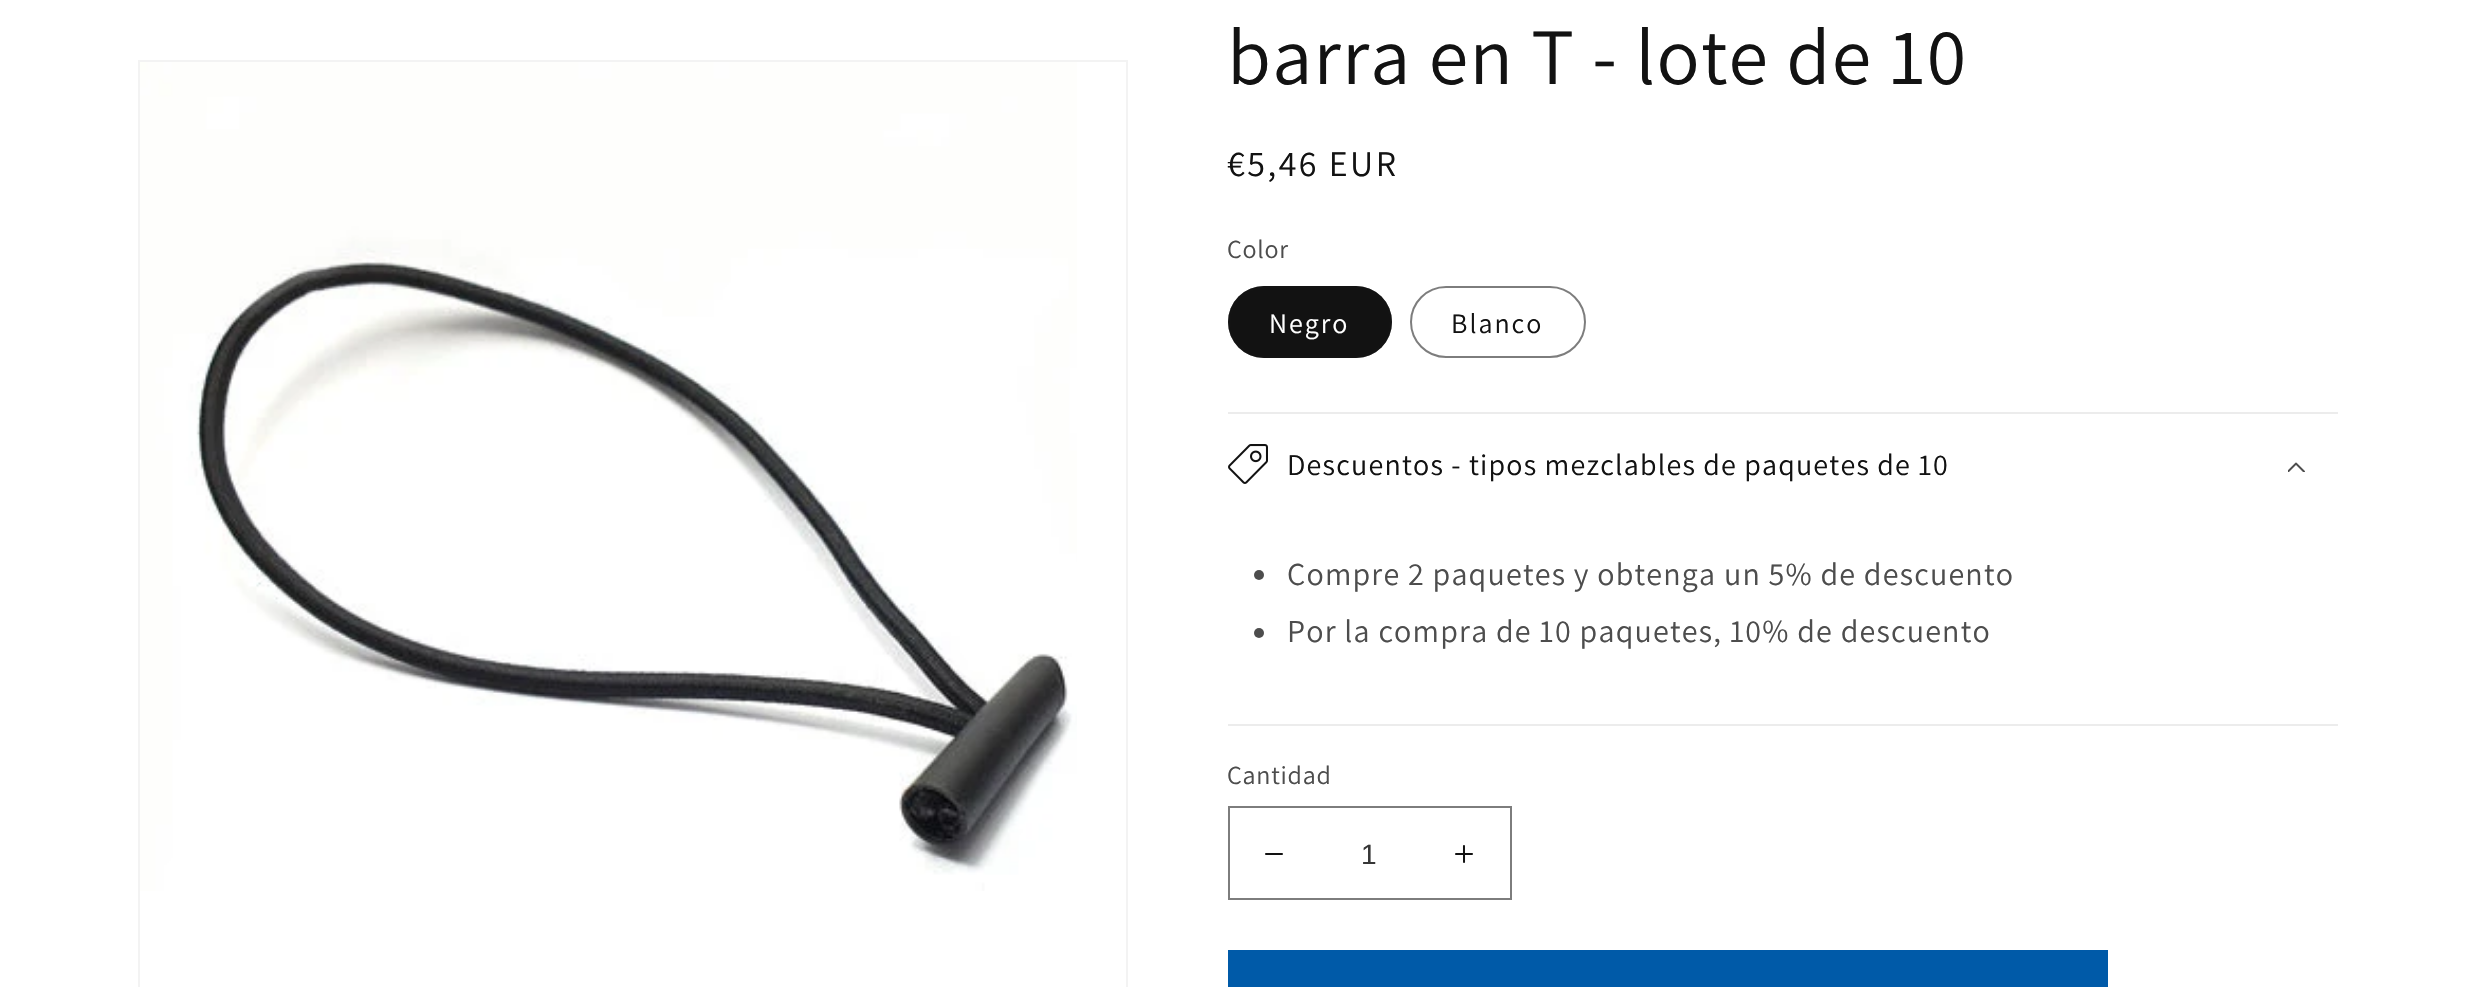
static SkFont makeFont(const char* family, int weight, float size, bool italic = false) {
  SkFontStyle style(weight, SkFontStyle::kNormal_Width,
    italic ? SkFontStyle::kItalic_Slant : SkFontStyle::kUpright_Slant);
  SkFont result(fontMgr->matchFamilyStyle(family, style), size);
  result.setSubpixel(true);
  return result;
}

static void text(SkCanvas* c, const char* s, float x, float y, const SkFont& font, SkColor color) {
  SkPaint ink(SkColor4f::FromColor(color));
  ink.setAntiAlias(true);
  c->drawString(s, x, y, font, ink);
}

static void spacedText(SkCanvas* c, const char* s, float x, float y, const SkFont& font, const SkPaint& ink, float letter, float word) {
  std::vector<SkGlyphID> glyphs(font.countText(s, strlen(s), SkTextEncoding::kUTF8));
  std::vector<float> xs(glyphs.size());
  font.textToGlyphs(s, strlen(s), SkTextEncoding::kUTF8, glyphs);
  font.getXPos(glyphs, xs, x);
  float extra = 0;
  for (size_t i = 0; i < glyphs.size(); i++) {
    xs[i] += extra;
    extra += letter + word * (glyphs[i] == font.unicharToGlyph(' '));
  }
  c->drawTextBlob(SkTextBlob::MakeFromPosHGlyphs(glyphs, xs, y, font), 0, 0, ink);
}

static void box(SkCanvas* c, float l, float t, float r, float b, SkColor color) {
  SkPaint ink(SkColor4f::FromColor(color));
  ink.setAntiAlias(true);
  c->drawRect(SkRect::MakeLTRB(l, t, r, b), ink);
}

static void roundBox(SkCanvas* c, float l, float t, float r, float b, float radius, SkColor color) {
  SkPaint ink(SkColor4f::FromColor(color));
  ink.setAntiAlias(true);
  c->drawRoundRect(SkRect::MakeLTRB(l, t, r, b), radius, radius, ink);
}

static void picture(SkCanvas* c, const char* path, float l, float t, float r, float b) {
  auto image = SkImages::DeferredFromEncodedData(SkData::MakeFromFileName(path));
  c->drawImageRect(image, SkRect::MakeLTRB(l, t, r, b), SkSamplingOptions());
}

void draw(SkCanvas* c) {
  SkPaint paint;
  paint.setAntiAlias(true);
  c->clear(0xffffffff);
  paint.setStyle(SkPaint::kStroke_Style);
  paint.setStrokeWidth(2);
  paint.setColor(0xfff3f3f3);
  c->drawRect(SkRect::MakeLTRB(139, 61, 1127, 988), paint);
  picture(c, "img_01.png", 140, 62, 1077, 891);
  SkFont face1 = makeFont("Assistant", 400, 80);
  paint.setStyle(SkPaint::kFill_Style);
  paint.setColor(0xff121212);
  spacedText(c, "barra en T - lote de 10", 1227, 84, face1, paint, 1.2f, 0);
  SkFont face2 = makeFont("Assistant", 400, 36);
  spacedText(c, "€5,46 EUR", 1227, 176, face2, paint, 2.5f, 0);
  SkFont face3 = makeFont("Assistant", 400, 26);
  paint.setColor(0xff4d4d4d);
  spacedText(c, "Color", 1227, 258, face3, paint, 0.75f, 0);
  roundBox(c, 1228, 286, 1392, 358, 36, 0xff121212);
  paint.setStyle(SkPaint::kStroke_Style);
  paint.setColor(0x8c121212);
  c->drawRoundRect(SkRect::MakeLTRB(1229, 287, 1391, 357), 35, 35, paint);
  SkFont face4 = makeFont("Assistant", 400, 28);
  paint.setStyle(SkPaint::kFill_Style);
  paint.setColor(0xffffffff);
  spacedText(c, "Negro", 1269, 333, face4, paint, 2, 0);
  paint.setStyle(SkPaint::kStroke_Style);
  paint.setColor(0xff7d7d7d);
  c->drawRoundRect(SkRect::MakeLTRB(1411, 287, 1585, 357), 35, 35, paint);
  paint.setStyle(SkPaint::kFill_Style);
  paint.setColor(0xff121212);
  spacedText(c, "Blanco", 1451, 333, face4, paint, 2, 0);
  box(c, 1228, 412, 2338, 414, 0xffececec);
  box(c, 1228, 724, 2338, 726, 0xffececec);
  picture(c, "img_02.png", 1228, 444, 1268, 484);
  SkFont face5 = makeFont("Assistant", 400, 30);
  spacedText(c, "Descuentos - tipos mezclables de paquetes de 10", 1287, 475, face5, paint, 1.2f, 0);
  picture(c, "img_03.png", 2288, 462, 2305, 472);
  paint.setColor(0xff4d4d4d);
  c->drawCircle(1259, 575, 5, paint);
  SkFont face6 = makeFont("Assistant", 400, 32);
  spacedText(c, "Compre 2 paquetes y obtenga un 5% de descuento", 1287, 585, face6, paint, 1.2f, 0);
  c->drawCircle(1259, 633, 5, paint);
  spacedText(c, "Por la compra de 10 paquetes, 10% de descuento", 1287, 642, face6, paint, 1.2f, 0);
  spacedText(c, "Cantidad", 1227, 784, face3, paint, 0.75f, 0);
  picture(c, "img_04.png", 1265, 853, 1283, 855);
  picture(c, "img_05.png", 1455, 845, 1473, 863);
  paint.setStyle(SkPaint::kStroke_Style);
  paint.setColor(0xff7d7d7d);
  c->drawRect(SkRect::MakeLTRB(1229, 807, 1511, 899), paint);
  SkFont face7 = makeFont("Liberation Sans", 400, 28);
  text(c, "1", 1361, 864, face7, 0xff363636);
  box(c, 1228, 950, 2108, 987, 0xff005aa8);
}
